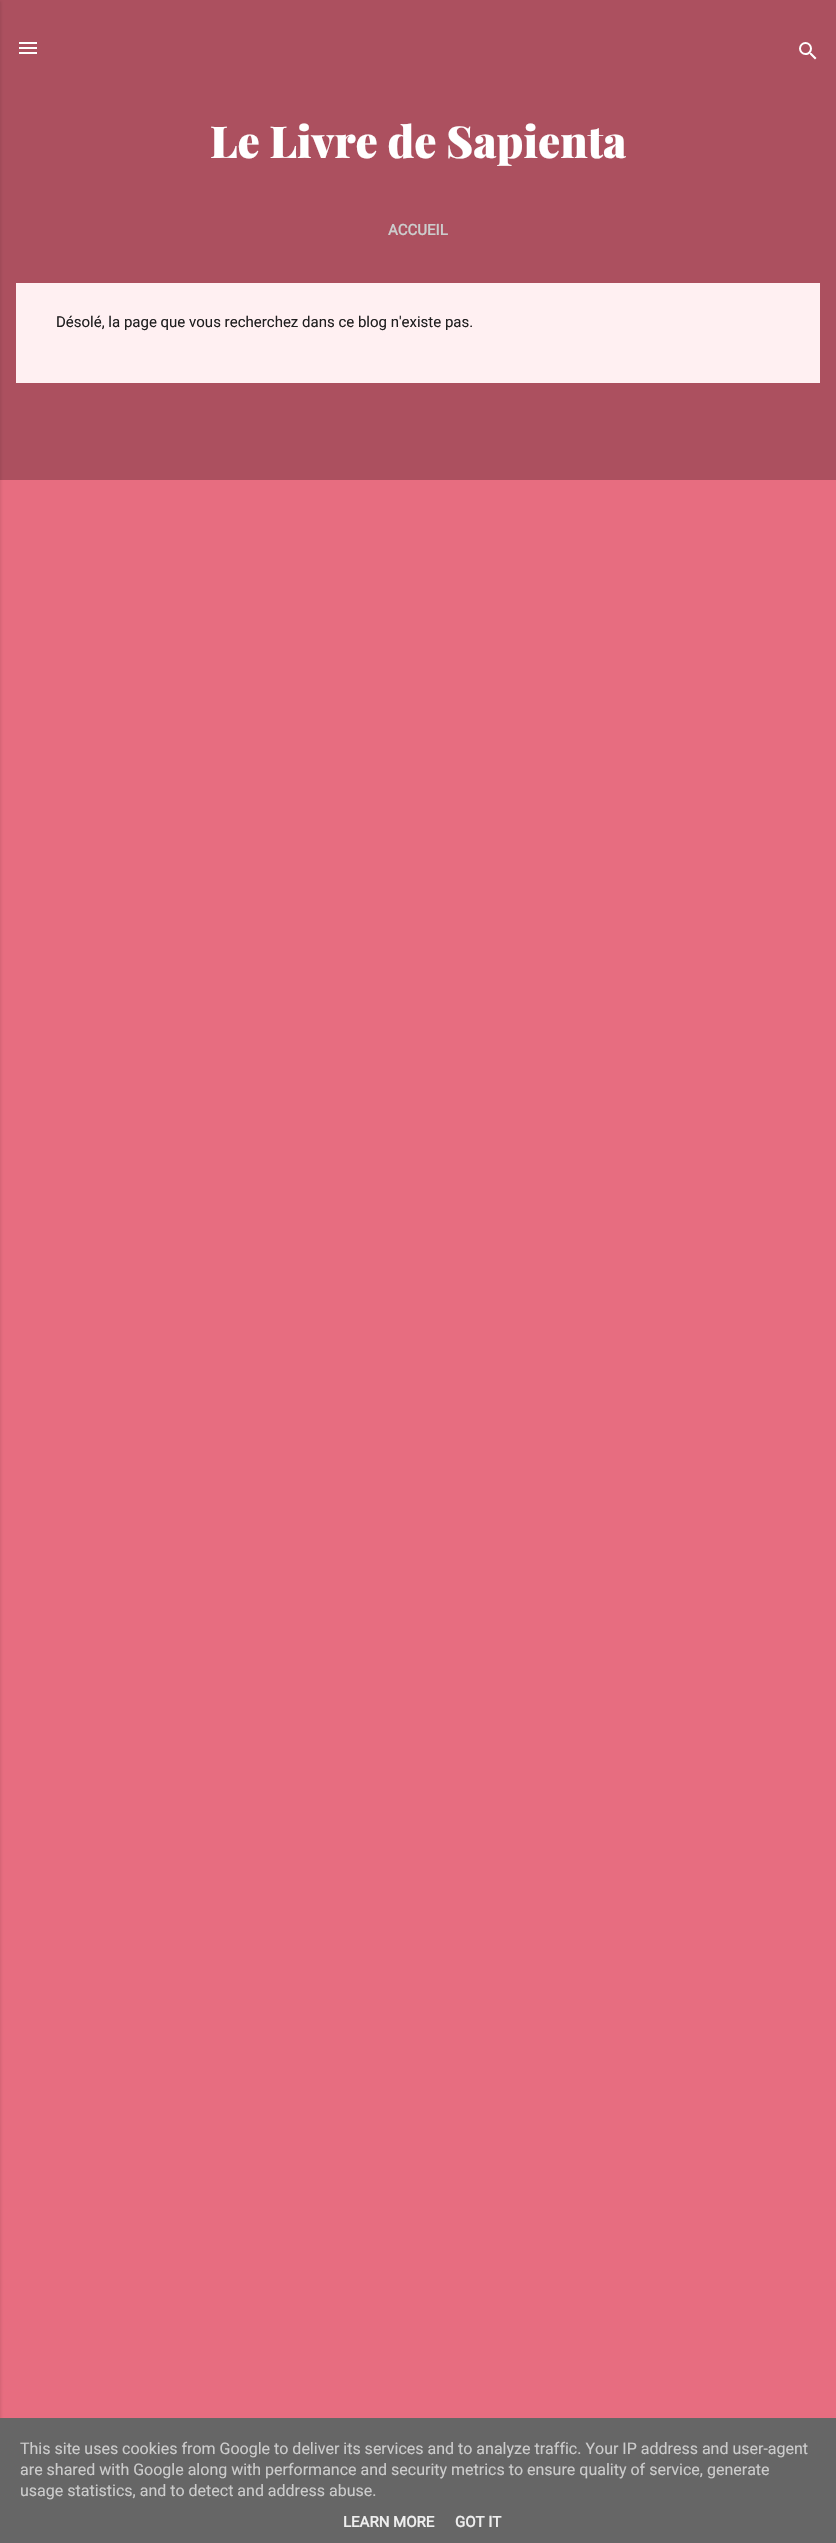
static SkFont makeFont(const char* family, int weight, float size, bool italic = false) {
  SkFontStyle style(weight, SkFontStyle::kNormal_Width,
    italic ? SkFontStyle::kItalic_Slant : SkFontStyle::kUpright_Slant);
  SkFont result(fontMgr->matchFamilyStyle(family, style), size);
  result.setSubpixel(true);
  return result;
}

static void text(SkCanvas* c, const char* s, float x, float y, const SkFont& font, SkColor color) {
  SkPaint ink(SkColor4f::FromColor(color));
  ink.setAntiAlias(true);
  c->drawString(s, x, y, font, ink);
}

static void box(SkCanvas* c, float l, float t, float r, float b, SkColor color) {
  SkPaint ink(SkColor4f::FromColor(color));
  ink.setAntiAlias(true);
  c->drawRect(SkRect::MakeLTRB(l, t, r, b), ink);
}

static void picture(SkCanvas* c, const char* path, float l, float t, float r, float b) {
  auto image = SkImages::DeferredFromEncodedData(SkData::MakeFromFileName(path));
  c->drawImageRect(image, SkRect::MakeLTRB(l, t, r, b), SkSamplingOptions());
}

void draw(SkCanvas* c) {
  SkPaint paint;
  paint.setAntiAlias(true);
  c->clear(0xffe76d80);
  box(c, 0, 0, 836, 480, 0xffac505f);
  paint.setColor(0x1a000000);
  paint.setMaskFilter(SkMaskFilter::MakeBlur(kNormal_SkBlurStyle, 1.5f));
  c->drawRect(SkRect::MakeLTRB(-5, 1, 1, 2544), paint);
  paint.setMaskFilter(nullptr);
  picture(c, "img_01.png", 19, 42, 37, 54);
  picture(c, "img_02.png", 799, 42, 817, 60);
  SkFont face1 = makeFont("Playfair Display", 900, 44);
  text(c, "Le Livre de Sapienta", 210, 158, face1, 0xffffffff);
  SkFont face2 = makeFont("Roboto", 700, 15);
  text(c, "ACCUEIL", 388, 235, face2, 0xffcccccc);
  box(c, 16, 283, 820, 383, 0xfffff0f2);
  SkFont face3 = makeFont("Roboto", 400, 15);
  text(c, "Désolé, la page que vous recherchez dans ce blog n'existe pas.", 56, 327, face3, 0xff201f20);
  box(c, 0, 2418, 836, 2543, 0xff666666);
  SkFont face4 = makeFont("Roboto", 400, 16);
  text(c, "This site uses cookies from Google to deliver its services and to analyze traffic. Your IP address and user-agent", 20, 2454, face4, 0xffcccccc);
  text(c, "are shared with Google along with performance and security metrics to ensure quality of service, generate", 20, 2475, face4, 0xffcccccc);
  text(c, "usage statistics, and to detect and address abuse.", 20, 2496, face4, 0xffcccccc);
  text(c, "LEARN MORE", 343, 2527, face2, 0xffeeeeee);
  text(c, "GOT IT", 455, 2527, face2, 0xffeeeeee);
}
